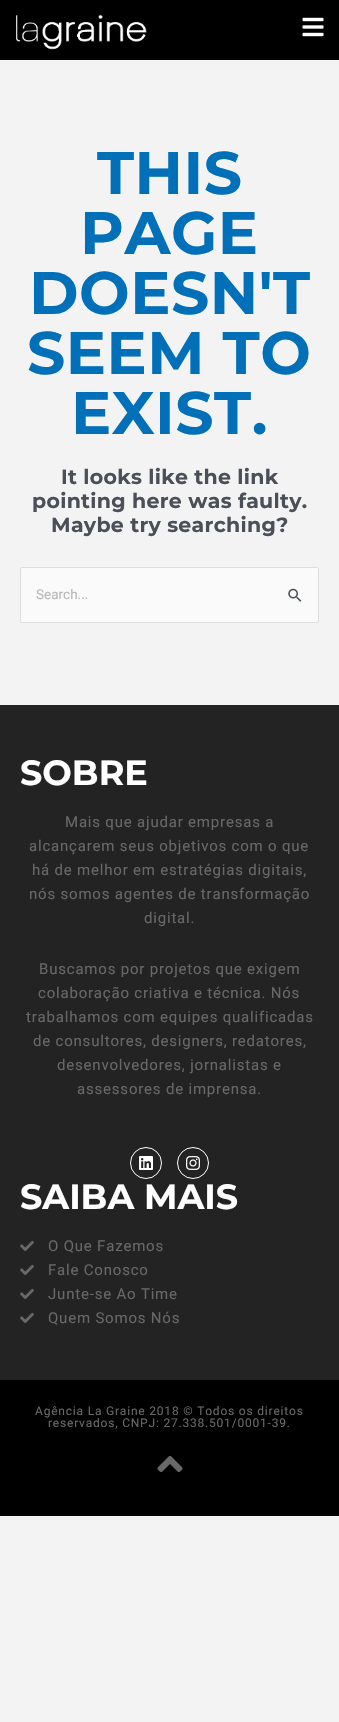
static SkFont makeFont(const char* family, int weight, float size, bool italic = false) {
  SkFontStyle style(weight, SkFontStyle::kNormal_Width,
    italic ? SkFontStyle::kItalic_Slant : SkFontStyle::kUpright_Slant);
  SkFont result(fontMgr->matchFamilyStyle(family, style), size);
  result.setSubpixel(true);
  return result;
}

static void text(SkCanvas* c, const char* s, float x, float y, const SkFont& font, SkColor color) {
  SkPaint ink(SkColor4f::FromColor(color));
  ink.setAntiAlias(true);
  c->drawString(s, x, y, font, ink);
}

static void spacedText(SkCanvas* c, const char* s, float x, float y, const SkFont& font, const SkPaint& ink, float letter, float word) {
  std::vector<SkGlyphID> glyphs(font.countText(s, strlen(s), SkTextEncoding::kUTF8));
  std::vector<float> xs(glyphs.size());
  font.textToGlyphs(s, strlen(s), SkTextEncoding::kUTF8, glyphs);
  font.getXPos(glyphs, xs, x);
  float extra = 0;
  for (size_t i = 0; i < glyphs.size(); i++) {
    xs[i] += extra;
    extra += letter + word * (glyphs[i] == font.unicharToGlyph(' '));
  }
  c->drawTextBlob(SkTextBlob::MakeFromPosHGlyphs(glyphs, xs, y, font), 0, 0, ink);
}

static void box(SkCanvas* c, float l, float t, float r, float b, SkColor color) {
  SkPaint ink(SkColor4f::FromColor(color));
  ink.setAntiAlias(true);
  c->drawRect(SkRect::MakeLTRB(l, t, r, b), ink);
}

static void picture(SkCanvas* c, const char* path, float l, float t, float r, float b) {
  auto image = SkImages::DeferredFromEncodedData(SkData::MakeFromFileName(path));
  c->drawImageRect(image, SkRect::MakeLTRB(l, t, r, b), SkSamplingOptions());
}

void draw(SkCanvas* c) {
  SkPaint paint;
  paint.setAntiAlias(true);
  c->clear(0xfff3f3f3);
  box(c, 0, 0, 339, 60, 0xff000000);
  picture(c, "img_01.png", 16, 14, 147, 50);
  picture(c, "img_02.png", 302, 17, 324, 37);
  SkFont face1 = makeFont("Montserrat", 700, 60);
  paint.setColor(0xff0170b9);
  spacedText(c, "THIS", 97, 194, face1, paint, 0.5f, 0);
  spacedText(c, "PAGE", 80, 254, face1, paint, 0.5f, 0);
  spacedText(c, "DOESN'T", 29, 314, face1, paint, 0.5f, 0);
  spacedText(c, "SEEM TO", 27, 374, face1, paint, 0.5f, 0);
  spacedText(c, "EXIST.", 71, 434, face1, paint, 0.5f, 0);
  SkFont face2 = makeFont("Montserrat", 700, 20.5f);
  paint.setColor(0xff4b4f58);
  spacedText(c, "It looks like the link", 61, 484, face2, paint, 0.3f, 0);
  spacedText(c, "pointing here was faulty.", 32, 508, face2, paint, 0.3f, 0);
  spacedText(c, "Maybe try searching?", 51, 532, face2, paint, 0.3f, 0);
  paint.setColor(0xfffafafa);
  c->drawRoundRect(SkRect::MakeLTRB(20.5f, 567.5f, 318.5f, 622.5f), 1.5f, 1.5f, paint);
  paint.setStyle(SkPaint::kStroke_Style);
  paint.setStrokeWidth(1);
  paint.setColor(0xffdddddd);
  c->drawRoundRect(SkRect::MakeLTRB(20.5f, 567.5f, 318.5f, 622.5f), 1.5f, 1.5f, paint);
  SkFont face3 = makeFont("Roboto", 400, 13.5f);
  text(c, "Search...", 36, 599, face3, 0xffb8b8b8);
  picture(c, "img_03.png", 288, 588, 302, 602);
  box(c, 0, 705, 339, 1380, 0xff232323);
  SkFont face4 = makeFont("Montserrat", 700, 35);
  text(c, "SOBRE", 20, 785, face4, 0xffffffff);
  SkFont face5 = makeFont("Roboto", 400, 15);
  paint.setStyle(SkPaint::kFill_Style);
  paint.setColor(0xff686868);
  spacedText(c, "Mais que ajudar empresas a", 65, 827, face5, paint, 0.8f, 0);
  spacedText(c, "alcançarem seus objetivos com o que", 29, 851, face5, paint, 0.8f, 0);
  spacedText(c, "há de melhor em estratégias digitais,", 32, 875, face5, paint, 0.8f, 0);
  spacedText(c, "nós somos agentes de transformação", 29, 899, face5, paint, 0.8f, 0);
  spacedText(c, "digital.", 144, 923, face5, paint, 0.8f, 0);
  spacedText(c, "Buscamos por projetos que exigem", 39, 974, face5, paint, 0.8f, 0);
  spacedText(c, "colaboração criativa e técnica. Nós", 38, 998, face5, paint, 0.8f, 0);
  spacedText(c, "trabalhamos com equipes qualificadas", 26, 1022, face5, paint, 0.8f, 0);
  spacedText(c, "de consultores, designers, redatores,", 33, 1046, face5, paint, 0.8f, 0);
  spacedText(c, "desenvolvedores, jornalistas e", 57, 1070, face5, paint, 0.8f, 0);
  spacedText(c, "assessores de imprensa.", 77, 1094, face5, paint, 0.8f, 0);
  paint.setStyle(SkPaint::kStroke_Style);
  paint.setColor(0xffffffff);
  c->drawCircle(146, 1163, 15.5f, paint);
  picture(c, "img_04.png", 139, 1156, 153, 1170);
  c->drawCircle(193, 1163, 15.5f, paint);
  picture(c, "img_05.png", 186, 1156, 200, 1170);
  text(c, "SAIBA MAIS", 20, 1209, face4, 0xffffffff);
  picture(c, "img_06.png", 20, 1240, 34, 1252);
  paint.setStyle(SkPaint::kFill_Style);
  paint.setColor(0xff686868);
  spacedText(c, "O Que Fazemos", 48, 1251, face5, paint, 0.8f, 0);
  picture(c, "img_06.png", 20, 1264, 34, 1276);
  spacedText(c, "Fale Conosco", 48, 1275, face5, paint, 0.8f, 0);
  picture(c, "img_06.png", 20, 1288, 34, 1300);
  spacedText(c, "Junte-se Ao Time", 48, 1299, face5, paint, 0.8f, 0);
  picture(c, "img_06.png", 20, 1312, 34, 1324);
  spacedText(c, "Quem Somos Nós", 48, 1323, face5, paint, 0.8f, 0);
  box(c, 0, 1380, 339, 1516, 0xff000000);
  SkFont face6 = makeFont("Roboto", 400, 12);
  spacedText(c, "Agência La Graine 2018 © Todos os direitos", 35, 1415, face6, paint, 0.8f, 0);
  spacedText(c, "reservados, CNPJ: 27.338.501/0001-39.", 48, 1427, face6, paint, 0.8f, 0);
  picture(c, "img_07.png", 157, 1456, 183, 1472);
}
